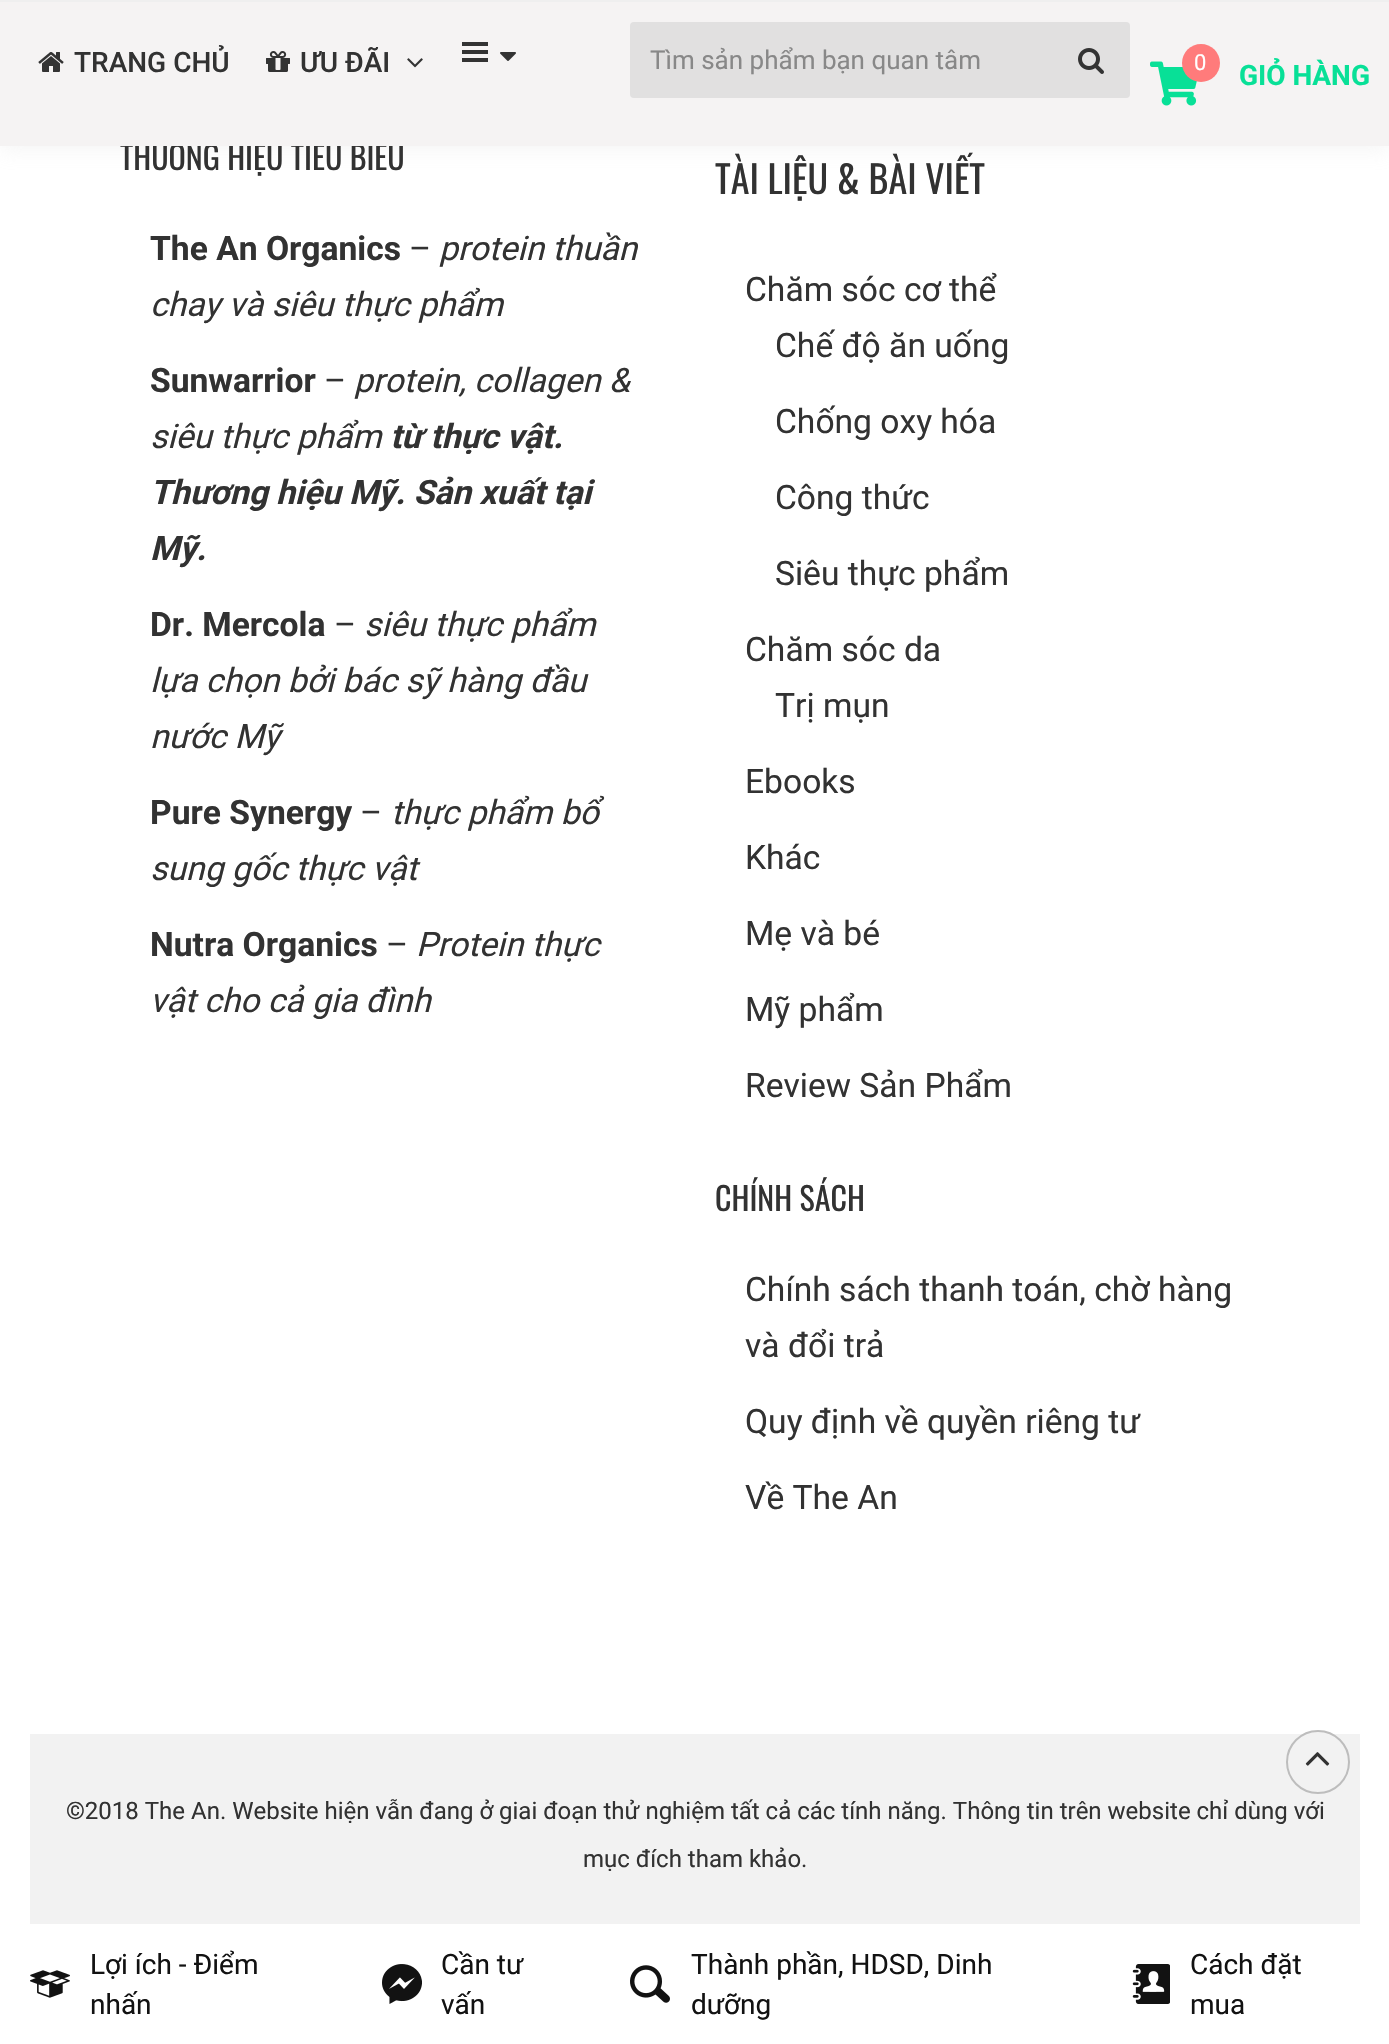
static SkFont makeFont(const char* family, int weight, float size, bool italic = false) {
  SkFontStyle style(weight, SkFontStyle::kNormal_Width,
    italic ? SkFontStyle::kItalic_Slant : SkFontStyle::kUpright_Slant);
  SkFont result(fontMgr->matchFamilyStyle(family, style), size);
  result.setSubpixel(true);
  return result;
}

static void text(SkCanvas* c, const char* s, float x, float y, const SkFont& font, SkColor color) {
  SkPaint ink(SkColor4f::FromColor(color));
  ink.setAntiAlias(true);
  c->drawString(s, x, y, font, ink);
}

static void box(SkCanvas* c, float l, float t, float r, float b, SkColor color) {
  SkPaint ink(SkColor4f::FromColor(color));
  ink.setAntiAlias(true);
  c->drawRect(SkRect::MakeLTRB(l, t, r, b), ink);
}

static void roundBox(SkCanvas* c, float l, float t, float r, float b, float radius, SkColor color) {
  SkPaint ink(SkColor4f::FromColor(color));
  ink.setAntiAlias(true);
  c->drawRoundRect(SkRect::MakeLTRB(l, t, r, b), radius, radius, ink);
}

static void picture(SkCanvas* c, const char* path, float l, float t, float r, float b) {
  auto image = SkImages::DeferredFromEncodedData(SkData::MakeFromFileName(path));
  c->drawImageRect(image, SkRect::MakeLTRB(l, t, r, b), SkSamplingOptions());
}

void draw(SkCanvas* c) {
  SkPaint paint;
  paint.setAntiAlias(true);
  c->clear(0xffffffff);
  paint.setColor(0x33cccccc);
  paint.setMaskFilter(SkMaskFilter::MakeBlur(kNormal_SkBlurStyle, 10));
  c->drawRect(SkRect::MakeLTRB(0, 4, 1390, 150), paint);
  paint.setMaskFilter(nullptr);
  SkFont face1 = makeFont("Oswald", 400, 32);
  text(c, "THƯƠNG HIỆU TIÊU BIỂU", 120, 170, face1, 0xff323232);
  box(c, 0, 2, 1389, 146, 0xfff5f3f3);
  box(c, 0, 0, 1389, 2, 0xffefefef);
  picture(c, "img_01.png", 38, 52, 64, 72);
  SkFont face2 = makeFont("Roboto", 500, 28);
  text(c, "TRANG CHỦ", 74, 72, face2, 0xff323232);
  picture(c, "img_02.png", 266, 51, 290, 72);
  text(c, "ƯU ĐÃI", 300, 72, face2, 0xff323232);
  picture(c, "img_03.png", 407, 58, 423, 68);
  box(c, 462, 42, 488, 46, 0xff333333);
  box(c, 462, 50, 488, 54, 0xff333333);
  box(c, 462, 58, 488, 62, 0xff333333);
  picture(c, "img_04.png", 500, 52, 516, 61);
  roundBox(c, 630, 22, 1130, 98, 4, 0xffe1e0e0);
  SkFont face3 = makeFont("Roboto", 400, 26);
  text(c, "Tìm sản phẩm bạn quan tâm", 650, 69, face3, 0xff888888);
  picture(c, "img_05.png", 1078, 48, 1104, 74);
  picture(c, "img_06.png", 1150, 61, 1197, 106);
  paint.setColor(0xffff7b7b);
  c->drawCircle(1201, 63, 19, paint);
  SkFont face4 = makeFont("Roboto", 400, 22);
  text(c, "0", 1194, 70, face4, 0xffffffff);
  SkFont face5 = makeFont("Roboto", 700, 28);
  text(c, "GIỎ HÀNG", 1239, 85, face5, 0xff08e097);
  SkFont face6 = makeFont("Roboto", 700, 33.6f);
  text(c, "The An Organics", 150, 260, face6, 0xff323232);
  SkFont face7 = makeFont("Roboto", 400, 33.6f);
  text(c, "–", 409, 260, face7, 0xff323232);
  SkFont face8 = makeFont("Roboto", 400, 33.6f, true);
  text(c, "protein thuần", 439, 260, face8, 0xff323232);
  text(c, "chay và siêu thực phẩm", 150, 316, face8, 0xff323232);
  text(c, "Sunwarrior", 150, 392, face6, 0xff323232);
  text(c, "–", 324, 392, face7, 0xff323232);
  text(c, "protein, collagen &", 354, 392, face8, 0xff323232);
  text(c, "siêu thực phẩm", 150, 448, face8, 0xff323232);
  SkFont face9 = makeFont("Roboto", 700, 33.6f, true);
  text(c, "từ thực vật.", 390, 448, face9, 0xff323232);
  text(c, "Thương hiệu Mỹ. Sản xuất tại", 150, 504, face9, 0xff323232);
  text(c, "Mỹ.", 150, 560, face9, 0xff323232);
  text(c, "Dr. Mercola", 150, 636, face6, 0xff323232);
  text(c, "–", 334, 636, face7, 0xff323232);
  text(c, "siêu thực phẩm", 364, 636, face8, 0xff323232);
  text(c, "lựa chọn bởi bác sỹ hàng đầu", 150, 692, face8, 0xff323232);
  text(c, "nước Mỹ", 150, 748, face8, 0xff323232);
  text(c, "Pure Synergy", 150, 824, face6, 0xff323232);
  text(c, "–", 360, 824, face7, 0xff323232);
  text(c, "thực phẩm bổ", 391, 824, face8, 0xff323232);
  text(c, "sung gốc thực vật", 150, 880, face8, 0xff323232);
  text(c, "Nutra Organics", 150, 956, face6, 0xff323232);
  text(c, "–", 386, 956, face7, 0xff323232);
  text(c, "Protein thực", 416, 956, face8, 0xff323232);
  text(c, "vật cho cả gia đình", 150, 1012, face8, 0xff323232);
  SkFont face10 = makeFont("Oswald", 400, 38);
  text(c, "TÀI LIỆU & BÀI VIẾT", 715, 194, face10, 0xff323232);
  text(c, "Chăm sóc cơ thể", 745, 301, face7, 0xff323232);
  text(c, "Chế độ ăn uống", 775, 357, face7, 0xff323232);
  text(c, "Chống oxy hóa", 775, 433, face7, 0xff323232);
  text(c, "Công thức", 775, 509, face7, 0xff323232);
  text(c, "Siêu thực phẩm", 775, 585, face7, 0xff323232);
  text(c, "Chăm sóc da", 745, 661, face7, 0xff323232);
  text(c, "Trị mụn", 775, 717, face7, 0xff323232);
  text(c, "Ebooks", 745, 793, face7, 0xff323232);
  text(c, "Khác", 745, 869, face7, 0xff323232);
  text(c, "Mẹ và bé", 745, 945, face7, 0xff323232);
  text(c, "Mỹ phẩm", 745, 1021, face7, 0xff323232);
  text(c, "Review Sản Phẩm", 745, 1097, face7, 0xff323232);
  text(c, "CHÍNH SÁCH", 715, 1211, face1, 0xff323232);
  text(c, "Chính sách thanh toán, chờ hàng", 745, 1301, face7, 0xff323232);
  text(c, "và đổi trả", 745, 1357, face7, 0xff323232);
  text(c, "Quy định về quyền riêng tư", 745, 1433, face7, 0xff323232);
  text(c, "Về The An", 745, 1509, face7, 0xff323232);
  box(c, 30, 1734, 1360, 1924, 0xfff2f2f2);
  paint.setColor(0xfff2f2f2);
  c->drawCircle(1318, 1762, 31, paint);
  paint.setStyle(SkPaint::kStroke_Style);
  paint.setStrokeWidth(2);
  paint.setColor(0xffbdbdbd);
  c->drawCircle(1318, 1762, 31, paint);
  picture(c, "img_07.png", 1305, 1752, 1330, 1766);
  SkFont face11 = makeFont("Roboto", 400, 24);
  text(c, "©2018 The An. Website hiện vẫn đang ở giai đoạn thử nghiệm tất cả các tính năng. Thông tin trên website chỉ dùng với", 66, 1819, face11, 0xff323232);
  text(c, "mục đích tham khảo.", 583, 1867, face11, 0xff323232);
  picture(c, "img_08.png", 30, 1970, 70, 1998);
  SkFont face12 = makeFont("Roboto", 400, 28);
  text(c, "Lợi ích - Điểm", 90, 1974, face12, 0xff121212);
  text(c, "nhấn", 90, 2014, face12, 0xff121212);
  picture(c, "img_09.png", 382, 1964, 422, 2004);
  text(c, "Cần tư", 441, 1974, face12, 0xff121212);
  text(c, "vấn", 441, 2014, face12, 0xff121212);
  picture(c, "img_10.png", 630, 1965, 670, 2003);
  text(c, "Thành phần, HDSD, Dinh", 691, 1974, face12, 0xff121212);
  text(c, "dưỡng", 691, 2014, face12, 0xff121212);
  picture(c, "img_11.png", 1132, 1964, 1170, 2004);
  text(c, "Cách đặt", 1190, 1974, face12, 0xff121212);
  text(c, "mua", 1190, 2014, face12, 0xff121212);
}
